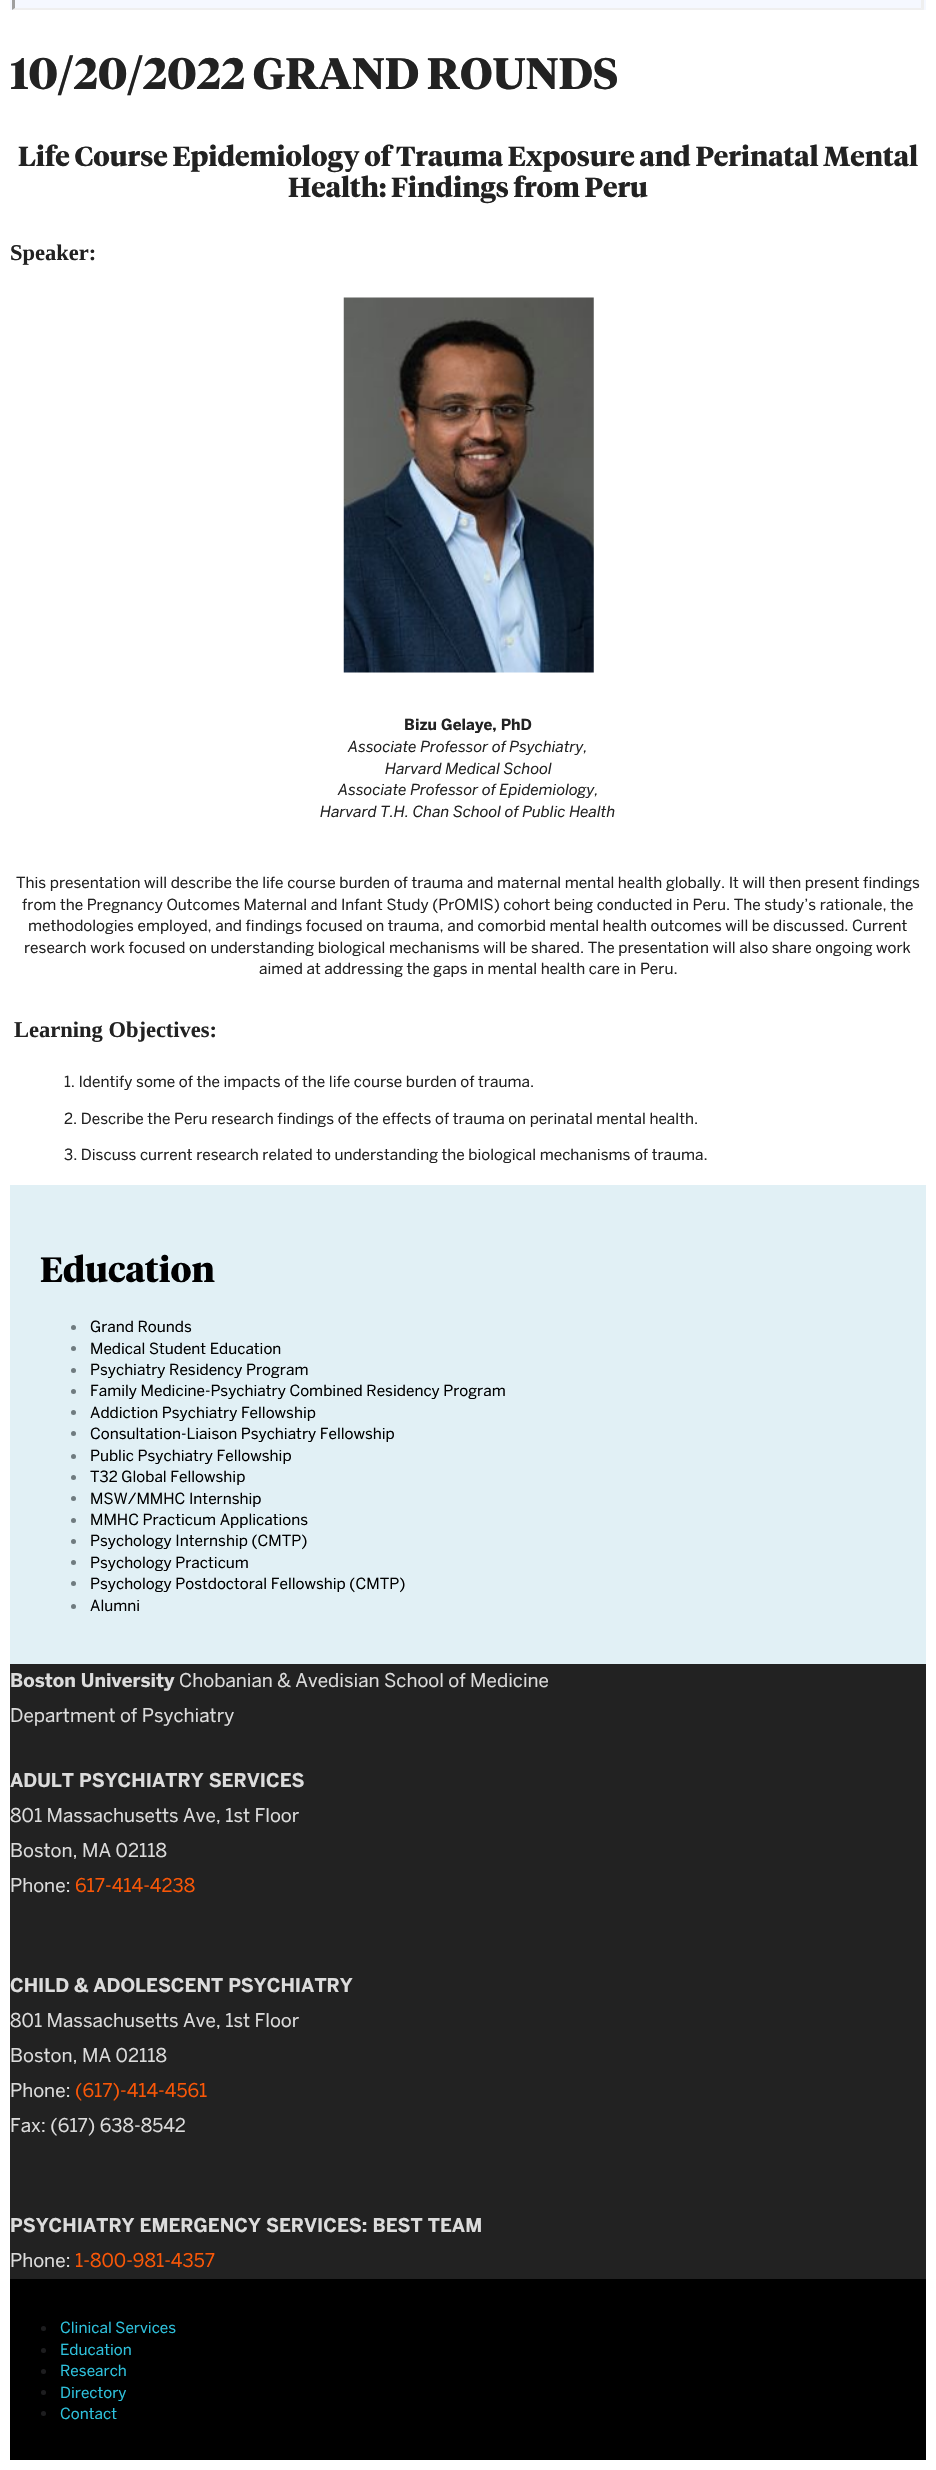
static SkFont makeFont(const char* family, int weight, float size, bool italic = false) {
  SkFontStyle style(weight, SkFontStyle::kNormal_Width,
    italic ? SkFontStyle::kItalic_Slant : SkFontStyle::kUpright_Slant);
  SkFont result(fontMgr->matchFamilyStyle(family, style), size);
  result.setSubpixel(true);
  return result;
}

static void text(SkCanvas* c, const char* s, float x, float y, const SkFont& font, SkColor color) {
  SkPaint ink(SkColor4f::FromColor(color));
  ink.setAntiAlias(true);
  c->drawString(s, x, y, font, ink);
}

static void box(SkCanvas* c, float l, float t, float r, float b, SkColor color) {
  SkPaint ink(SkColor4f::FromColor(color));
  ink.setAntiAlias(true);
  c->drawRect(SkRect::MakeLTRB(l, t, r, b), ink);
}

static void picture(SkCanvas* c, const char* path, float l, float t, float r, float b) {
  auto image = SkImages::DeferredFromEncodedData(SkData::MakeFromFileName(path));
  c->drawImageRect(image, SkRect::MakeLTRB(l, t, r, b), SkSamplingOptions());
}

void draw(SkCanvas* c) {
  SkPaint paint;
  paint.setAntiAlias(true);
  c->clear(0xffffffff);
  box(c, 10, 0, 926, 10, 0xfff5f8ff);
  paint.setColor(0xffefefef);
  c->drawPath(SkPathBuilder().moveTo(924, -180).lineTo(924, 10).lineTo(921, 8).lineTo(921, -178).close().detach(), paint);
  c->drawPath(SkPathBuilder().moveTo(924, 10).lineTo(12, 10).lineTo(15, 8).lineTo(921, 8).close().detach(), paint);
  paint.setColor(0xff9f9f9f);
  c->drawPath(SkPathBuilder().moveTo(12, 10).lineTo(12, -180).lineTo(15, -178).lineTo(15, 8).close().detach(), paint);
  SkFont face1 = makeFont("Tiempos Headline", 700, 43.75f);
  text(c, "10/20/2022 GRAND ROUNDS", 10, 89, face1, 0xff222222);
  SkFont face2 = makeFont("Tiempos Headline", 700, 27.5f);
  text(c, "Life Course Epidemiology of Trauma Exposure and Perinatal Mental", 18, 166, face2, 0xff222222);
  text(c, "Health: Findings from Peru", 288, 197, face2, 0xff222222);
  SkFont face3 = makeFont("Liberation Serif", 700, 22.5f);
  text(c, "Speaker:", 10, 260, face3, 0xff222222);
  picture(c, "img_01.png", 343, 297, 594, 673);
  SkFont face4 = makeFont("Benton", 700, 15.3f);
  text(c, "Bizu Gelaye, PhD", 404, 730, face4, 0xff222222);
  SkFont face5 = makeFont("Benton", 400, 15.3f, true);
  text(c, "Associate Professor of Psychiatry,", 348, 752, face5, 0xff222222);
  text(c, "Harvard Medical School", 385, 774, face5, 0xff222222);
  text(c, "Associate Professor of Epidemiology,", 338, 795, face5, 0xff222222);
  text(c, "Harvard T.H. Chan School of Public Health", 320, 817, face5, 0xff222222);
  SkFont face6 = makeFont("Benton", 400, 15.3f);
  text(c, "This presentation will describe the life course burden of trauma and maternal mental health globally. It will then present findings", 16, 888, face6, 0xff222222);
  text(c, "from the Pregnancy Outcomes Maternal and Infant Study (PrOMIS) cohort being conducted in Peru. The study’s rationale, the", 22, 910, face6, 0xff222222);
  text(c, "methodologies employed, and findings focused on trauma, and comorbid mental health outcomes will be discussed. Current", 28, 931, face6, 0xff222222);
  text(c, "research work focused on understanding biological mechanisms will be shared. The presentation will also share ongoing work", 24, 953, face6, 0xff222222);
  text(c, "aimed at addressing the gaps in mental health care in Peru.", 259, 974, face6, 0xff222222);
  text(c, "Learning Objectives:", 14, 1037, face3, 0xff222222);
  text(c, "1. Identify some of the impacts of the life course burden of trauma.", 64, 1087, face6, 0xff222222);
  text(c, "2. Describe the Peru research findings of the effects of trauma on perinatal mental health.", 64, 1124, face6, 0xff222222);
  text(c, "3. Discuss current research related to understanding the biological mechanisms of trauma.", 64, 1160, face6, 0xff222222);
  box(c, 10, 1185, 926, 1664, 0xffe1f0f5);
  SkFont face7 = makeFont("Tiempos Headline", 700, 35);
  text(c, "Education", 40, 1282, face7, 0xff000000);
  paint.setColor(0xff6f7b7f);
  c->drawCircle(73.5f, 1327.5f, 2.5f, paint);
  text(c, "Grand Rounds", 90, 1332, face6, 0xff000000);
  c->drawCircle(73.5f, 1348.5f, 2.5f, paint);
  text(c, "Medical Student Education", 90, 1354, face6, 0xff000000);
  c->drawCircle(73.5f, 1370.5f, 2.5f, paint);
  text(c, "Psychiatry Residency Program", 90, 1375, face6, 0xff000000);
  c->drawCircle(73.5f, 1391.5f, 2.5f, paint);
  text(c, "Family Medicine-Psychiatry Combined Residency Program", 90, 1396, face6, 0xff000000);
  c->drawCircle(73.5f, 1412.5f, 2.5f, paint);
  text(c, "Addiction Psychiatry Fellowship", 90, 1418, face6, 0xff000000);
  c->drawCircle(73.5f, 1433.5f, 2.5f, paint);
  text(c, "Consultation-Liaison Psychiatry Fellowship", 90, 1439, face6, 0xff000000);
  c->drawCircle(73.5f, 1456.5f, 2.5f, paint);
  text(c, "Public Psychiatry Fellowship", 90, 1461, face6, 0xff000000);
  c->drawCircle(73.5f, 1477.5f, 2.5f, paint);
  text(c, "T32 Global Fellowship", 90, 1482, face6, 0xff000000);
  c->drawCircle(73.5f, 1498.5f, 2.5f, paint);
  text(c, "MSW/MMHC Internship", 90, 1504, face6, 0xff000000);
  c->drawCircle(73.5f, 1520.5f, 2.5f, paint);
  text(c, "MMHC Practicum Applications", 90, 1525, face6, 0xff000000);
  c->drawCircle(73.5f, 1541.5f, 2.5f, paint);
  text(c, "Psychology Internship (CMTP)", 90, 1546, face6, 0xff000000);
  c->drawCircle(73.5f, 1562.5f, 2.5f, paint);
  text(c, "Psychology Practicum", 90, 1568, face6, 0xff000000);
  c->drawCircle(73.5f, 1583.5f, 2.5f, paint);
  text(c, "Psychology Postdoctoral Fellowship (CMTP)", 90, 1589, face6, 0xff000000);
  c->drawCircle(73.5f, 1606.5f, 2.5f, paint);
  text(c, "Alumni", 90, 1611, face6, 0xff000000);
  box(c, 10, 1664, 926, 2279, 0xff222222);
  SkFont face8 = makeFont("Benton", 700, 18.75f);
  text(c, "Boston University", 10, 1687, face8, 0xffdcdcdc);
  SkFont face9 = makeFont("Benton", 400, 18.75f);
  text(c, "Chobanian & Avedisian School of Medicine", 179, 1687, face9, 0xffdcdcdc);
  text(c, "Department of Psychiatry", 10, 1722, face9, 0xffdcdcdc);
  text(c, "ADULT PSYCHIATRY SERVICES", 10, 1787, face8, 0xffdcdcdc);
  text(c, "801 Massachusetts Ave, 1st Floor", 10, 1822, face9, 0xffdcdcdc);
  text(c, "Boston, MA 02118", 10, 1857, face9, 0xffdcdcdc);
  text(c, "Phone:", 10, 1892, face9, 0xffdcdcdc);
  text(c, "617-414-4238", 75, 1892, face9, 0xfffa5707);
  text(c, "CHILD & ADOLESCENT PSYCHIATRY", 10, 1992, face8, 0xffdcdcdc);
  text(c, "801 Massachusetts Ave, 1st Floor", 10, 2027, face9, 0xffdcdcdc);
  text(c, "Boston, MA 02118", 10, 2062, face9, 0xffdcdcdc);
  text(c, "Phone:", 10, 2097, face9, 0xffdcdcdc);
  text(c, "(617)-414-4561", 75, 2097, face9, 0xfffa5707);
  text(c, "Fax: (617) 638-8542", 10, 2132, face9, 0xffdcdcdc);
  text(c, "PSYCHIATRY EMERGENCY SERVICES: BEST TEAM", 10, 2232, face8, 0xffdcdcdc);
  text(c, "Phone:", 10, 2267, face9, 0xffdcdcdc);
  text(c, "1-800-981-4357", 75, 2267, face9, 0xfffa5707);
  box(c, 10, 2279, 926, 2460, 0xff000000);
  paint.setColor(0xff1d1d1f);
  c->drawCircle(43.5f, 2328.5f, 2.5f, paint);
  text(c, "Clinical Services", 60, 2333, face6, 0xff2ec1dc);
  c->drawCircle(43.5f, 2350.5f, 2.5f, paint);
  text(c, "Education", 60, 2355, face6, 0xff2ec1dc);
  c->drawCircle(43.5f, 2371.5f, 2.5f, paint);
  text(c, "Research", 60, 2376, face6, 0xff2ec1dc);
  c->drawCircle(43.5f, 2392.5f, 2.5f, paint);
  text(c, "Directory", 60, 2398, face6, 0xff2ec1dc);
  c->drawCircle(43.5f, 2413.5f, 2.5f, paint);
  text(c, "Contact", 60, 2419, face6, 0xff2ec1dc);
}
